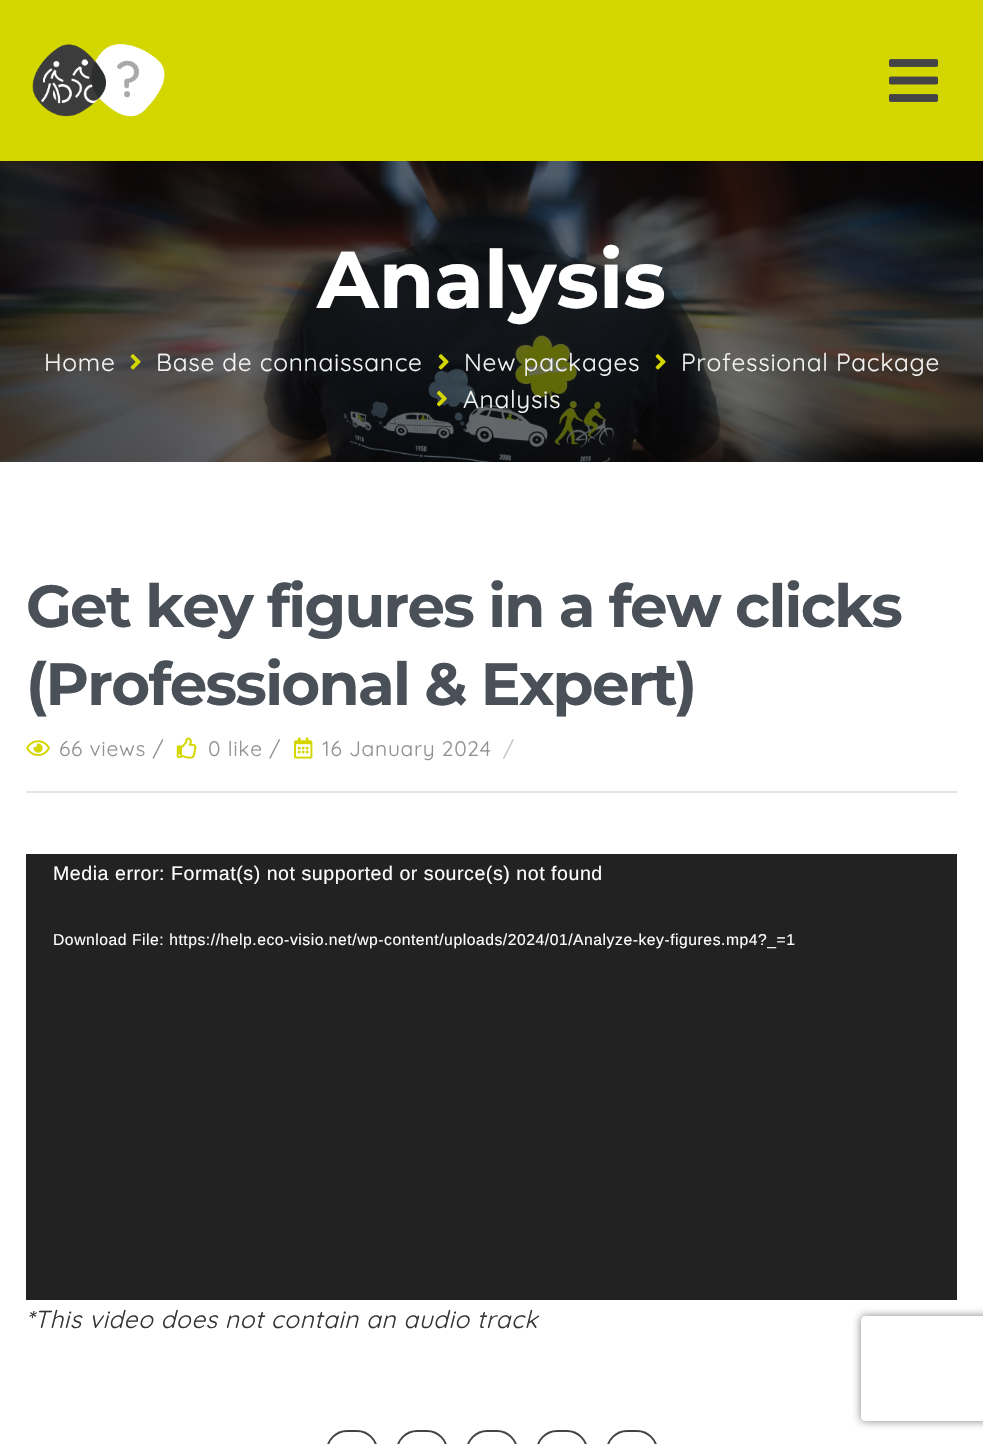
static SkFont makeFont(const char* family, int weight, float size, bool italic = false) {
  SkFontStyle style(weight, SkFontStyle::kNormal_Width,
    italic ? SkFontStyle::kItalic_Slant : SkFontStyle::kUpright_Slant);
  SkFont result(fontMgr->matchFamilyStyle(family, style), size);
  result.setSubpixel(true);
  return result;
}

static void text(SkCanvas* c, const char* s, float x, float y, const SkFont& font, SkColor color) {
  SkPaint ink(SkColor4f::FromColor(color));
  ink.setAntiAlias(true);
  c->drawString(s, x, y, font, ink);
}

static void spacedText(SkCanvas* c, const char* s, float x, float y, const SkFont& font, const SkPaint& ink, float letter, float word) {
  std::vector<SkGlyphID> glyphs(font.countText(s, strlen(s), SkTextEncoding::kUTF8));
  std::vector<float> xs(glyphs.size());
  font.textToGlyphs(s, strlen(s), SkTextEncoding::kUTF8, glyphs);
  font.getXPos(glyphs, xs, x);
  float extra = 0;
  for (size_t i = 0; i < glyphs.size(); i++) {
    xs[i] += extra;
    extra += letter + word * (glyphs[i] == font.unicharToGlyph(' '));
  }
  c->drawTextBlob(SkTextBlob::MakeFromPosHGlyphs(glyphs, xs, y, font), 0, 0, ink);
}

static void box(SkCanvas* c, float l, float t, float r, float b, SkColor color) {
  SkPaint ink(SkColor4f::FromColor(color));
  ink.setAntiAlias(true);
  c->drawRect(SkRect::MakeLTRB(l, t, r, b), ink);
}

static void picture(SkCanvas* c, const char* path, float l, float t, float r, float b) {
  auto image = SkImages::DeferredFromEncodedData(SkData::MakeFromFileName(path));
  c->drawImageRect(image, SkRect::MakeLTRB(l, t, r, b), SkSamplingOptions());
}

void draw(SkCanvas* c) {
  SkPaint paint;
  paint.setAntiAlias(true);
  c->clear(0xffffffff);
  box(c, 0, 0, 983, 161, 0xffd4d600);
  picture(c, "img_01.png", 32, 44, 165, 117);
  picture(c, "img_02.png", 889, 59, 938, 102);
  picture(c, "img_03.png", 0, 161, 983, 462);
  SkFont face1 = makeFont("Montserrat", 700, 80.5f);
  text(c, "Analysis", 317, 308, face1, 0xffffffff);
  SkFont face2 = makeFont("Quicksand", 300, 24.5f);
  paint.setColor(0xfff4f4f4);
  spacedText(c, "Home", 44, 371, face2, paint, 0.7f, 0);
  picture(c, "img_04.png", 130, 354, 141, 370);
  spacedText(c, "Base de connaissance", 156, 371, face2, paint, 0.7f, 0);
  picture(c, "img_05.png", 438, 354, 449, 370);
  spacedText(c, "New packages", 464, 371, face2, paint, 0.7f, 0);
  picture(c, "img_06.png", 655, 354, 666, 370);
  spacedText(c, "Professional Package", 681, 371, face2, paint, 0.7f, 0);
  picture(c, "img_07.png", 437, 390, 447, 407);
  spacedText(c, "Analysis", 463, 408, face2, paint, 0.7f, 0);
  box(c, 26, 791, 957, 793, 0xffe4e4e4);
  SkFont face3 = makeFont("Montserrat", 700, 59.5f);
  paint.setColor(0xff495057);
  spacedText(c, "Get key figures in a few clicks", 26, 627, face3, paint, -1.75f, 0);
  spacedText(c, "(Professional & Expert)", 26, 705, face3, paint, -1.75f, 0);
  picture(c, "img_08.png", 26, 740, 50, 756);
  SkFont face4 = makeFont("Quicksand", 300, 21);
  paint.setColor(0xff919191);
  spacedText(c, "66 views /", 59, 756, face4, paint, 0.7f, 0);
  picture(c, "img_09.png", 176, 737, 197, 759);
  spacedText(c, "0 like /", 208, 756, face4, paint, 0.7f, 0);
  picture(c, "img_10.png", 294, 737, 313, 759);
  spacedText(c, "16 January 2024", 322, 756, face4, paint, 0.7f, 0);
  paint.setColor(0xffc3c3c3);
  spacedText(c, "/", 503, 756, face4, paint, 0.7f, 0);
  box(c, 26, 854, 957, 1300, 0xff222222);
  SkFont face5 = makeFont("Liberation Sans", 400, 19.6f);
  paint.setColor(0xffffffff);
  spacedText(c, "Media error: Format(s) not supported or source(s) not found", 53, 880, face5, paint, 0.53f, 0);
  SkFont face6 = makeFont("Liberation Sans", 400, 15.7f);
  spacedText(c, "Download File: https://help.eco-visio.net/wp-content/uploads/2024/01/Analyze-key-figures.mp4?_=1", 53, 945, face6, paint, 0.53f, 0);
  SkFont face7 = makeFont("Quicksand", 300, 24.5f, true);
  paint.setColor(0xff333333);
  spacedText(c, "*This video does not contain an audio track", 26, 1328, face7, paint, 0.53f, 0);
  paint.setStyle(SkPaint::kStroke_Style);
  paint.setStrokeWidth(2);
  paint.setColor(0xff444446);
  c->drawRoundRect(SkRect::MakeLTRB(327, 1431, 377, 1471), 25, 25, paint);
  c->drawRoundRect(SkRect::MakeLTRB(397, 1431, 447, 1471), 25, 25, paint);
  c->drawRoundRect(SkRect::MakeLTRB(467, 1431, 517, 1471), 25, 25, paint);
  c->drawRoundRect(SkRect::MakeLTRB(537, 1431, 587, 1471), 25, 25, paint);
  c->drawRoundRect(SkRect::MakeLTRB(607, 1431, 657, 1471), 25, 25, paint);
  c->save();
  c->clipPath(SkPathBuilder(SkPathFillType::kEvenOdd).moveTo(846, 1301).lineTo(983, 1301).lineTo(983, 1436).lineTo(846, 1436).close().moveTo(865, 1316).lineTo(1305, 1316).cubicTo(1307, 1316, 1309, 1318, 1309, 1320).lineTo(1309, 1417).cubicTo(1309, 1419, 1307, 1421, 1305, 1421).lineTo(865, 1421).cubicTo(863, 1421, 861, 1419, 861, 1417).lineTo(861, 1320).cubicTo(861, 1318, 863, 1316, 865, 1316).close().detach(), true);
  paint.setStyle(SkPaint::kFill_Style);
  paint.setColor(0xff808080);
  paint.setMaskFilter(SkMaskFilter::MakeBlur(kNormal_SkBlurStyle, 4.5f));
  c->drawRoundRect(SkRect::MakeLTRB(861, 1316, 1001, 1421), 4, 4, paint);
  paint.setMaskFilter(nullptr);
  c->restore();
}
